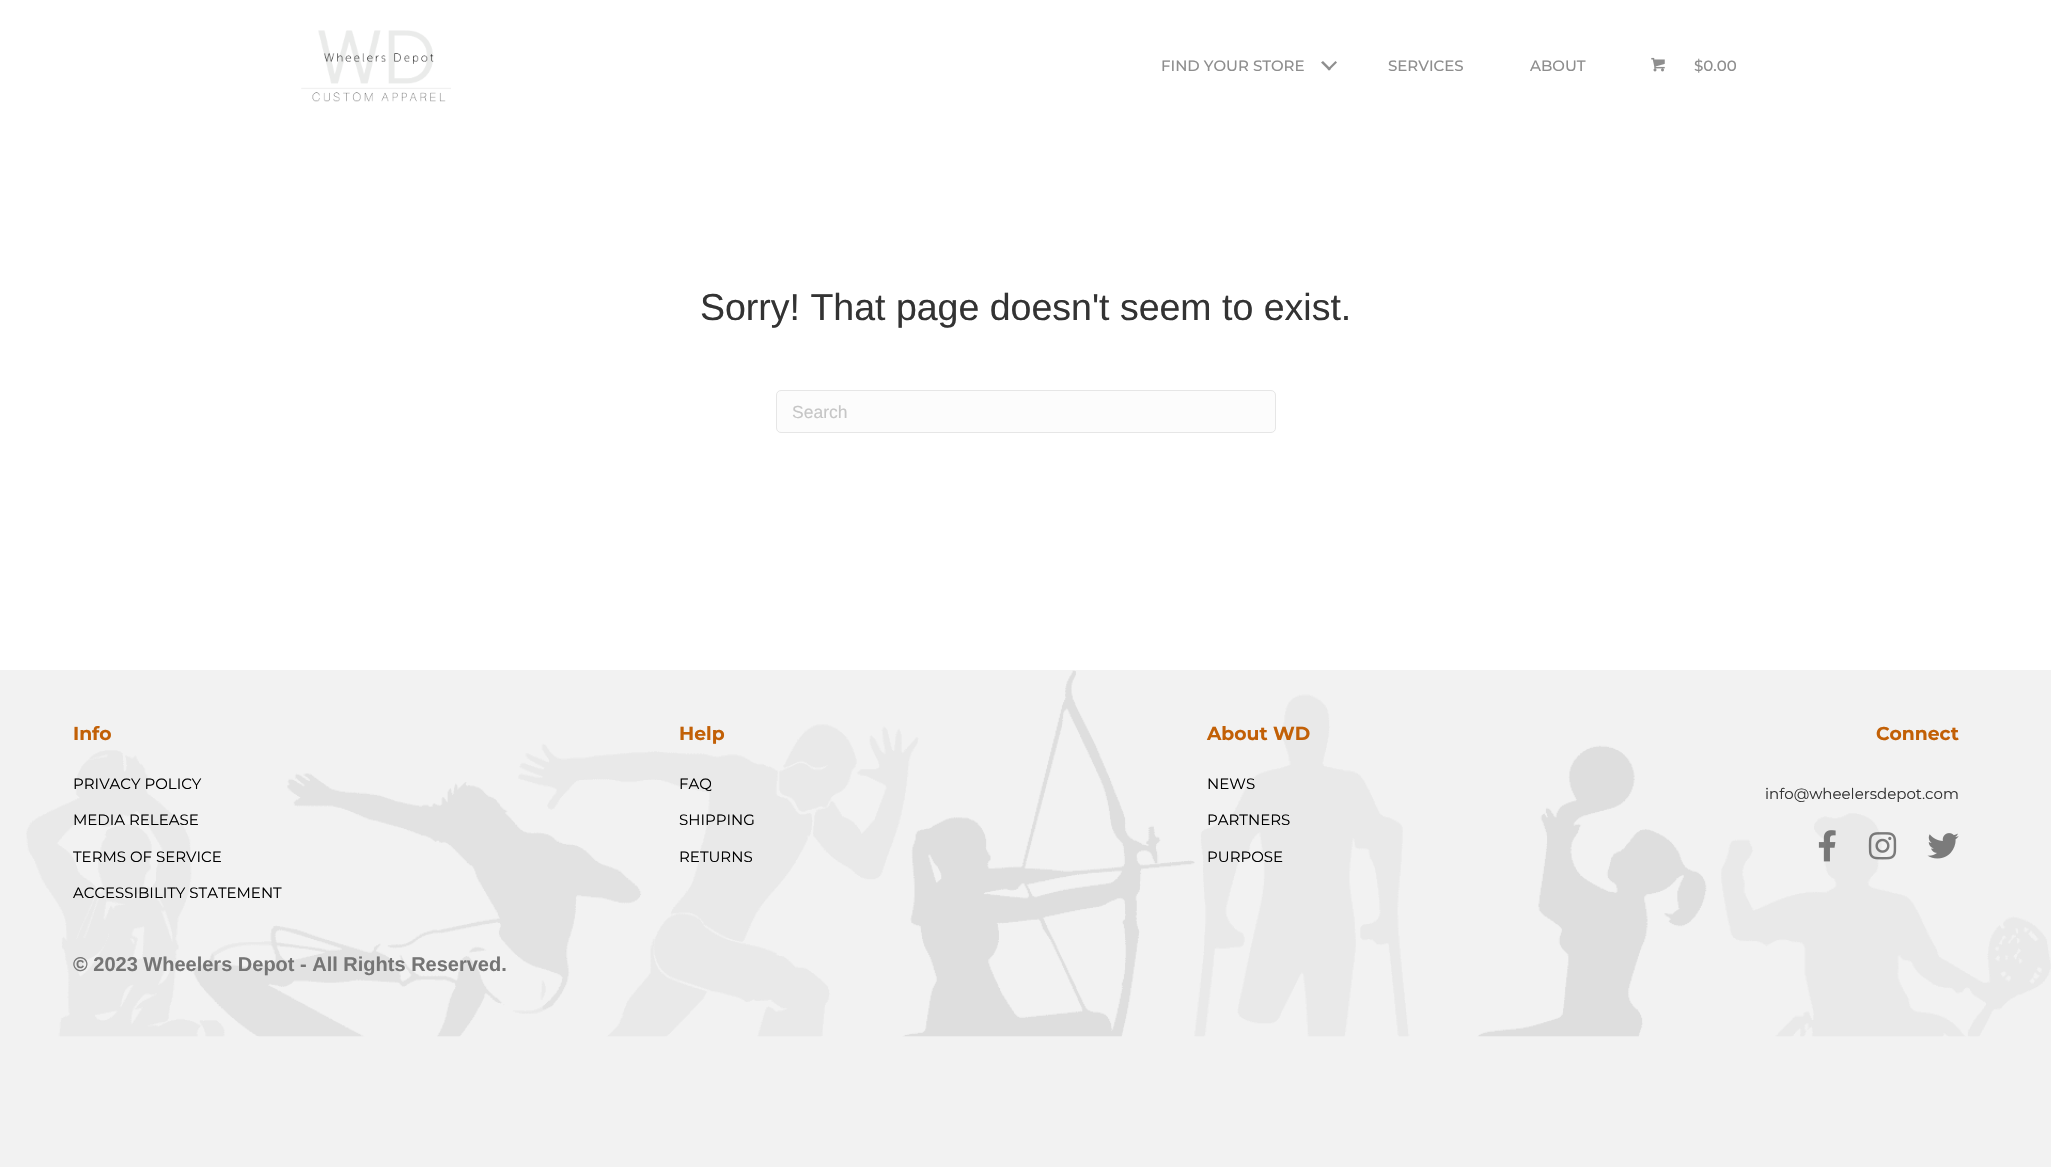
static SkFont makeFont(const char* family, int weight, float size, bool italic = false) {
  SkFontStyle style(weight, SkFontStyle::kNormal_Width,
    italic ? SkFontStyle::kItalic_Slant : SkFontStyle::kUpright_Slant);
  SkFont result(fontMgr->matchFamilyStyle(family, style), size);
  result.setSubpixel(true);
  return result;
}

static void text(SkCanvas* c, const char* s, float x, float y, const SkFont& font, SkColor color) {
  SkPaint ink(SkColor4f::FromColor(color));
  ink.setAntiAlias(true);
  c->drawString(s, x, y, font, ink);
}

static void box(SkCanvas* c, float l, float t, float r, float b, SkColor color) {
  SkPaint ink(SkColor4f::FromColor(color));
  ink.setAntiAlias(true);
  c->drawRect(SkRect::MakeLTRB(l, t, r, b), ink);
}

static void picture(SkCanvas* c, const char* path, float l, float t, float r, float b) {
  auto image = SkImages::DeferredFromEncodedData(SkData::MakeFromFileName(path));
  c->drawImageRect(image, SkRect::MakeLTRB(l, t, r, b), SkSamplingOptions());
}

void draw(SkCanvas* c) {
  SkPaint paint;
  paint.setAntiAlias(true);
  c->clear(0xfff2f2f2);
  box(c, 0, 0, 2051, 670, 0xffffffff);
  picture(c, "img_01.png", 301, 30, 451, 102);
  SkFont face1 = makeFont("Montserrat", 500, 15);
  text(c, "FIND YOUR STORE", 1161, 71, face1, 0xff8e8e8e);
  paint.setColor(0xff8e8e8e);
  c->drawPath(SkPathBuilder().moveTo(1335.5f, 61).lineTo(1337, 62.5f).lineTo(1329, 70.5f).lineTo(1327.5f, 69).close().detach(), paint);
  c->drawPath(SkPathBuilder().moveTo(1323, 61).lineTo(1331, 69).lineTo(1329, 70.5f).lineTo(1321, 62.5f).close().detach(), paint);
  text(c, "SERVICES", 1388, 71, face1, 0xff8e8e8e);
  text(c, "ABOUT", 1530, 71, face1, 0xff8e8e8e);
  picture(c, "img_02.png", 1651, 57, 1665, 72);
  text(c, "$0.00", 1694, 71, face1, 0xff8e8e8e);
  SkFont face2 = makeFont("Liberation Sans", 400, 37.5f);
  text(c, "Sorry! That page doesn't seem to exist.", 700, 320, face2, 0xff333333);
  paint.setColor(0xfffcfcfc);
  c->drawRoundRect(SkRect::MakeLTRB(776.5f, 390.5f, 1275.5f, 432.5f), 4.5f, 4.5f, paint);
  paint.setStyle(SkPaint::kStroke_Style);
  paint.setStrokeWidth(1);
  paint.setColor(0xffe6e6e6);
  c->drawRoundRect(SkRect::MakeLTRB(776.5f, 390.5f, 1275.5f, 432.5f), 4.5f, 4.5f, paint);
  SkFont face3 = makeFont("Liberation Sans", 400, 17.5f);
  text(c, "Search", 792, 418, face3, 0xffc6c6c6);
  picture(c, "img_03.png", 26, 670, 2051, 1037);
  SkFont face4 = makeFont("Montserrat", 700, 18.75f);
  text(c, "Info", 73, 740, face4, 0xffc26006);
  SkFont face5 = makeFont("Montserrat", 400, 15);
  text(c, "PRIVACY POLICY", 73, 789, face5, 0xff000000);
  text(c, "MEDIA RELEASE", 73, 825, face5, 0xff000000);
  text(c, "TERMS OF SERVICE", 73, 862, face5, 0xff000000);
  text(c, "ACCESSIBILITY STATEMENT", 73, 898, face5, 0xff000000);
  text(c, "Help", 679, 740, face4, 0xffc26006);
  text(c, "FAQ", 679, 789, face5, 0xff000000);
  text(c, "SHIPPING", 679, 825, face5, 0xff000000);
  text(c, "RETURNS", 679, 862, face5, 0xff000000);
  text(c, "About WD", 1207, 740, face4, 0xffc26006);
  text(c, "NEWS", 1207, 789, face5, 0xff000000);
  text(c, "PARTNERS", 1207, 825, face5, 0xff000000);
  text(c, "PURPOSE", 1207, 862, face5, 0xff000000);
  text(c, "Connect", 1876, 740, face4, 0xffc26006);
  text(c, "info@wheelersdepot.com", 1765, 799, face5, 0xff333333);
  picture(c, "img_04.png", 1818, 830, 1836, 862);
  picture(c, "img_05.png", 1868, 832, 1897, 860);
  picture(c, "img_06.png", 1927, 833, 1959, 859);
  SkFont face6 = makeFont("Liberation Sans", 700, 20);
  text(c, "© 2023 Wheelers Depot - All Rights Reserved.", 73, 971, face6, 0xff757575);
}
